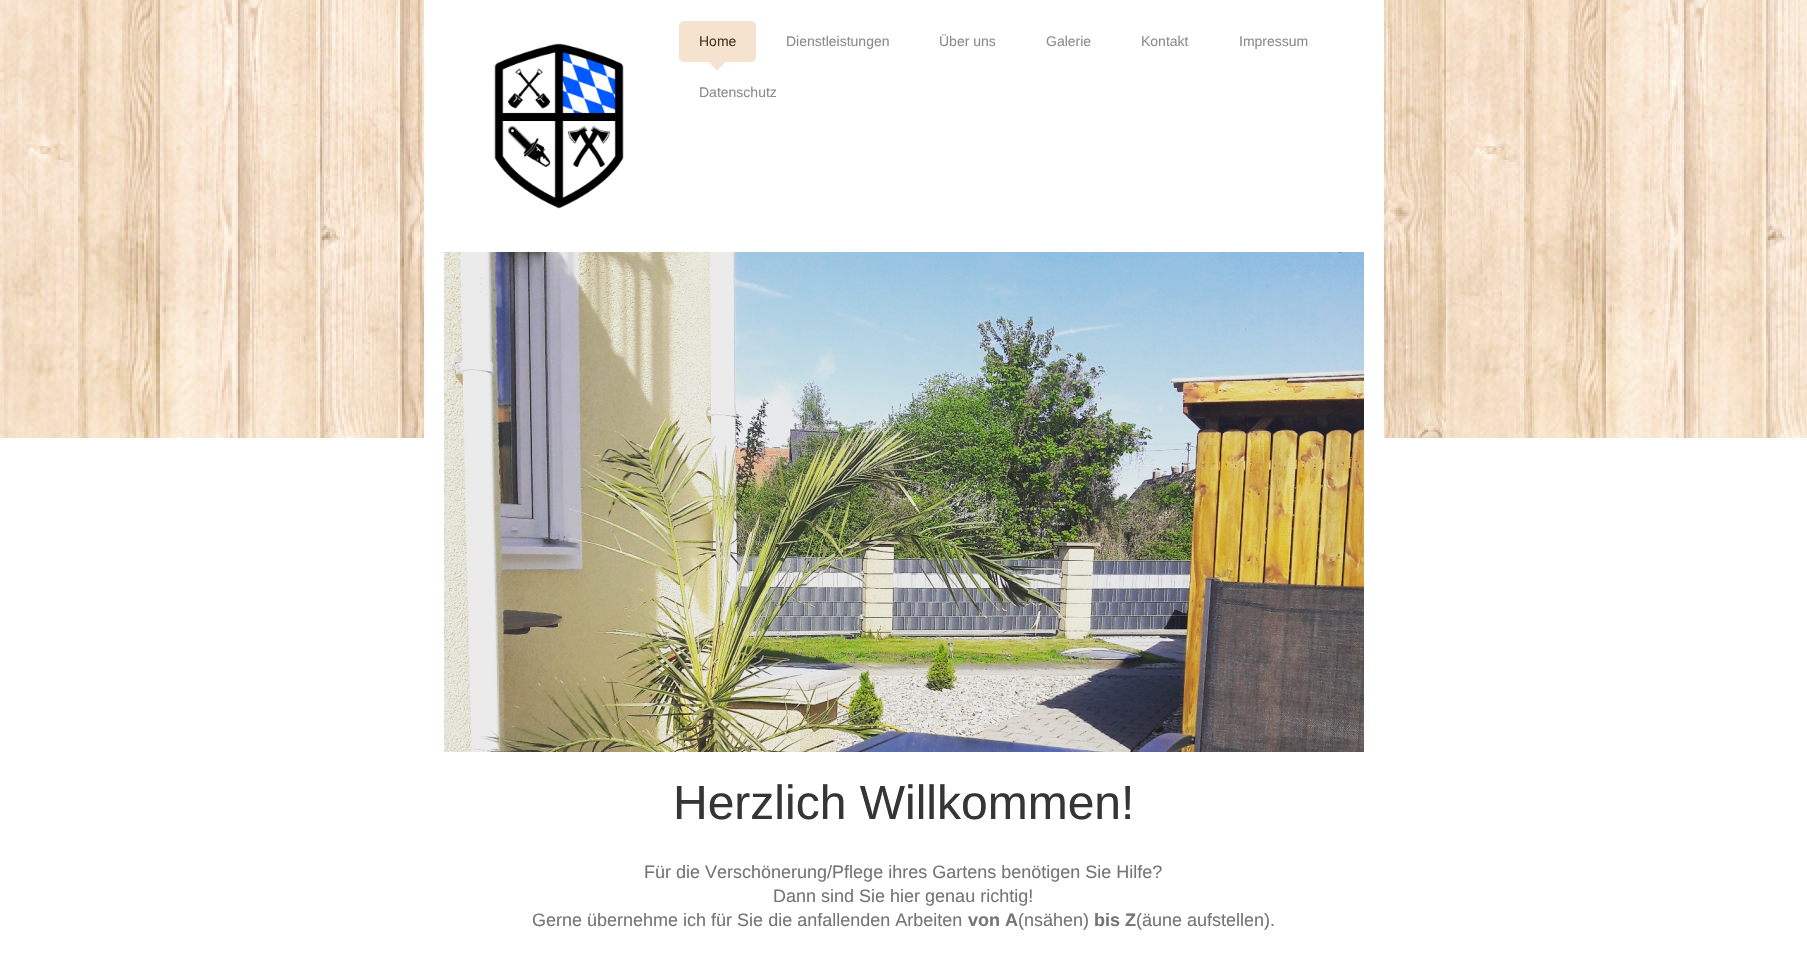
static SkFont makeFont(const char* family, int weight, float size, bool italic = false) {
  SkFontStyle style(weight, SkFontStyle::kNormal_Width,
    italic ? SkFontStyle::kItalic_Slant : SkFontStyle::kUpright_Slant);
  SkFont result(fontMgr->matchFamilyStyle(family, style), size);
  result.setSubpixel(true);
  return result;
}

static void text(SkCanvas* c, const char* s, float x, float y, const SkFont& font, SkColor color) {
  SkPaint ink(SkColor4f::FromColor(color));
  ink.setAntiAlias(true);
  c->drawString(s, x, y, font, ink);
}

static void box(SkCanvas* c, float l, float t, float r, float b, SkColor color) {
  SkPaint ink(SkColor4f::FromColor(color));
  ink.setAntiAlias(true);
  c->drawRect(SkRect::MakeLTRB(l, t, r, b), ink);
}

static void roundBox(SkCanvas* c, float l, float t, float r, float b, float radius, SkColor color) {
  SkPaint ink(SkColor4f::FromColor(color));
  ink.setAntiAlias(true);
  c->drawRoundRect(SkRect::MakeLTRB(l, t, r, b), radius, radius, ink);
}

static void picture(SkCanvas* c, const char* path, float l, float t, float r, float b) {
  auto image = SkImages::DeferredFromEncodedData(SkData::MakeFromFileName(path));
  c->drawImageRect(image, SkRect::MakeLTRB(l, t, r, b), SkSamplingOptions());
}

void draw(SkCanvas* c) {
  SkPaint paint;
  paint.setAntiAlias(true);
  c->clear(0xffffffff);
  picture(c, "img_01.png", 0, 0, 1807, 966);
  box(c, 424, 0, 1384, 440, 0xffffffff);
  picture(c, "img_02.png", 494, 43, 624, 209);
  roundBox(c, 679, 21, 756, 62, 5, 0xfff5e3cf);
  SkFont face1 = makeFont("Liberation Sans", 400, 14);
  text(c, "Home", 699, 46, face1, 0xff4c371f);
  paint.setColor(0xfff5e3cf);
  c->drawPath(SkPathBuilder().moveTo(707, 60.5f).lineTo(727, 60.5f).lineTo(717, 70.5f).close().detach(), paint);
  text(c, "Dienstleistungen", 786, 46, face1, 0xff8c8c8c);
  text(c, "Über uns", 939, 46, face1, 0xff8c8c8c);
  text(c, "Galerie", 1046, 46, face1, 0xff8c8c8c);
  text(c, "Kontakt", 1141, 46, face1, 0xff8c8c8c);
  text(c, "Impressum", 1239, 46, face1, 0xff8c8c8c);
  text(c, "Datenschutz", 699, 97, face1, 0xff8c8c8c);
  picture(c, "img_03.png", 444, 252, 1364, 752);
  SkFont face2 = makeFont("Liberation Sans", 400, 48);
  text(c, "Herzlich Willkommen!", 673, 819, face2, 0xff353535);
  SkFont face3 = makeFont("Liberation Sans", 400, 18);
  text(c, "Für die Verschönerung/Pflege ihres Gartens benötigen Sie Hilfe?", 644, 878, face3, 0xff757575);
  text(c, "Dann sind Sie hier genau richtig!", 773, 902, face3, 0xff757575);
  text(c, "Gerne übernehme ich für Sie die anfallenden Arbeiten", 532, 926, face3, 0xff757575);
  SkFont face4 = makeFont("Liberation Sans", 700, 18);
  text(c, "von A", 968, 926, face4, 0xff757575);
  text(c, "(nsähen)", 1018, 926, face3, 0xff757575);
  text(c, "bis Z", 1094, 926, face4, 0xff757575);
  text(c, "(äune aufstellen).", 1136, 926, face3, 0xff757575);
}
